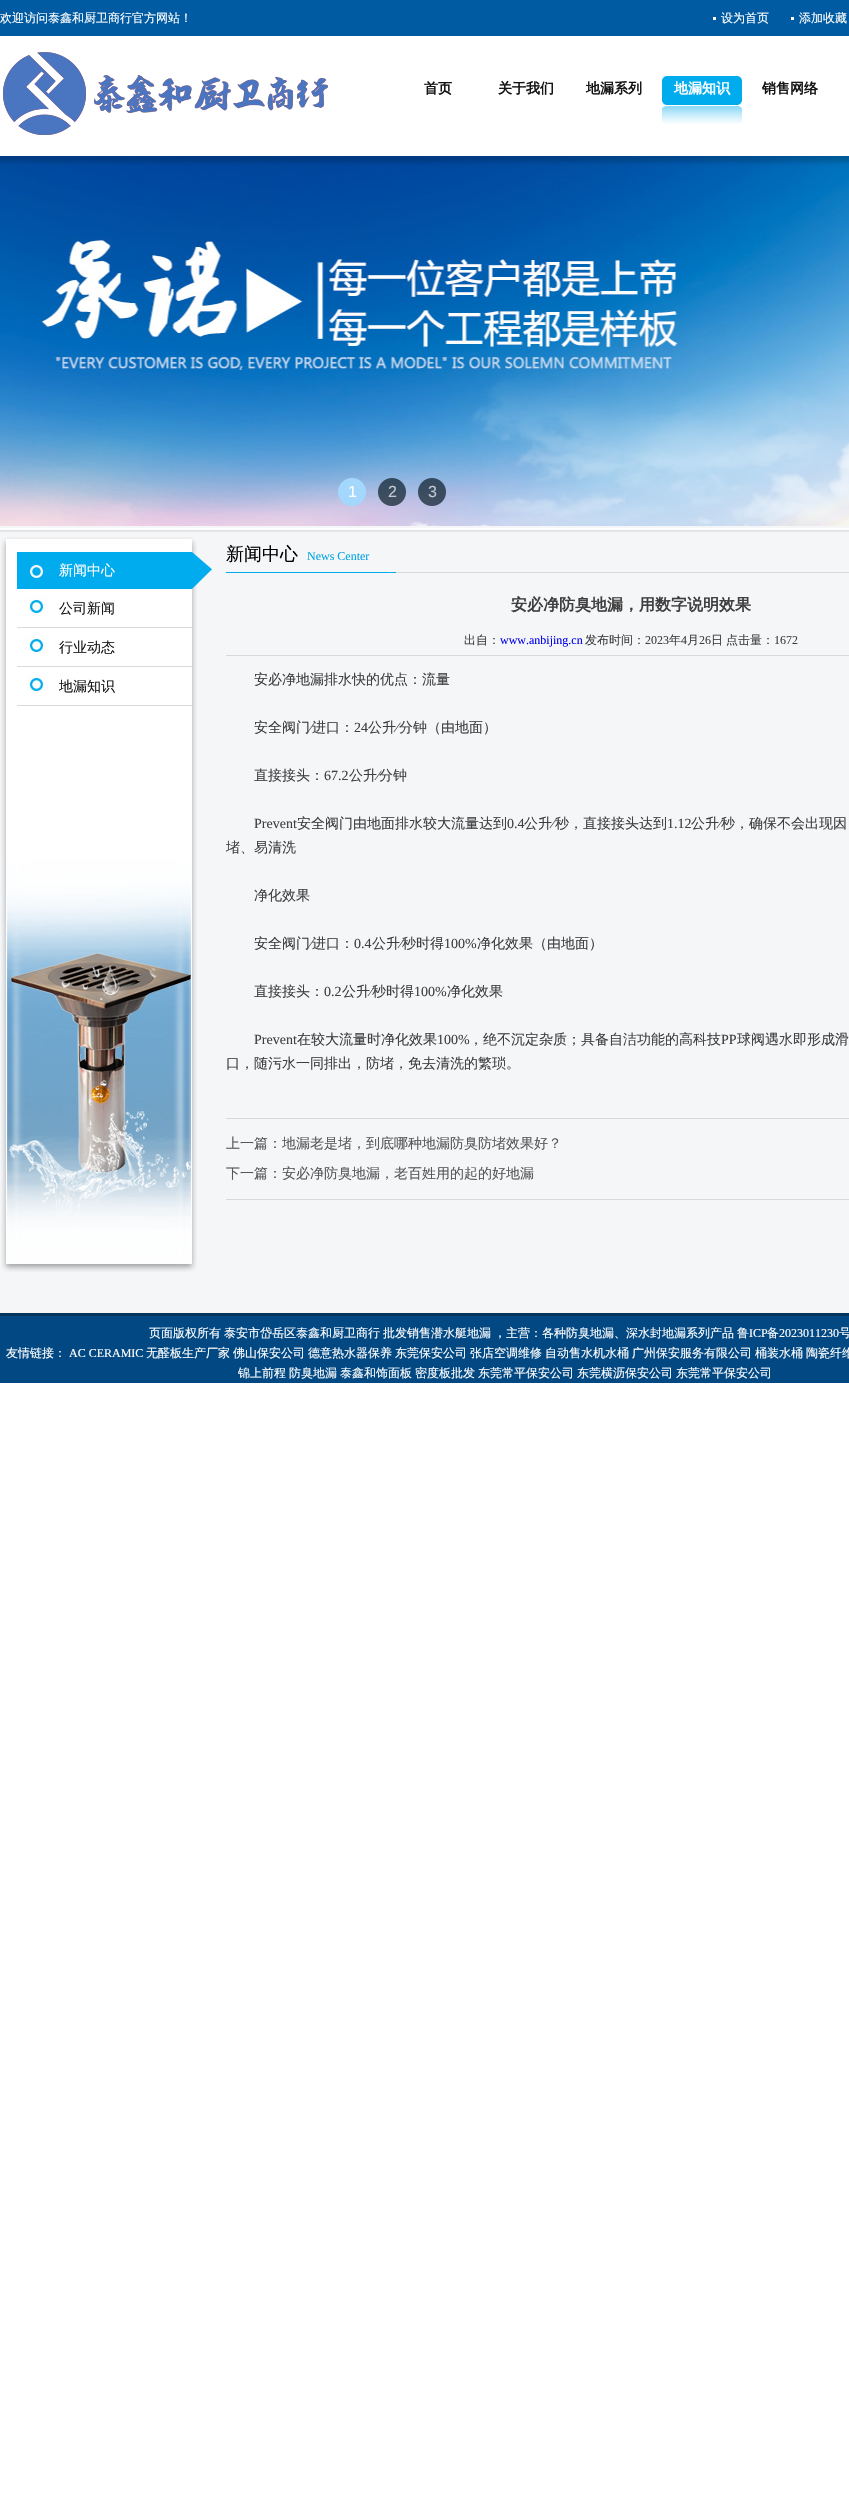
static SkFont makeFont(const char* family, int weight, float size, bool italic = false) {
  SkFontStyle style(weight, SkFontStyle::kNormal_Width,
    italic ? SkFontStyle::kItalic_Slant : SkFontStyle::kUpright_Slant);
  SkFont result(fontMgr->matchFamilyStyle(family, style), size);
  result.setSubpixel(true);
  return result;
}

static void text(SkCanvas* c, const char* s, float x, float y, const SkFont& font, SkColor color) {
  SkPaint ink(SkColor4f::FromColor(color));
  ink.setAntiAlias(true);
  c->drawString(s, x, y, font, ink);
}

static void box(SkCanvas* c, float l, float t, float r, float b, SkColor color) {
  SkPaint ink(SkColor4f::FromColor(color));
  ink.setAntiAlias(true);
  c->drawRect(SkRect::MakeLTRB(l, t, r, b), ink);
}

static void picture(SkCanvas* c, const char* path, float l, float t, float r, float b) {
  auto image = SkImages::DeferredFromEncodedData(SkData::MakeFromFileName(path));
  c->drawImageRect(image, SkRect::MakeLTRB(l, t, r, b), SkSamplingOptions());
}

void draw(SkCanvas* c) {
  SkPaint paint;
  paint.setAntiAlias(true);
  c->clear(0xffffffff);
  box(c, 0, 0, 849, 36, 0xff005ba2);
  SkFont face1 = makeFont("WenQuanYi Zen Hei", 500, 12);
  text(c, "欢迎访问泰鑫和厨卫商行官方网站！", 0, 22, face1, 0xffffffff);
  box(c, 713, 17, 716, 20, 0xffffffff);
  text(c, "设为首页", 721, 22, face1, 0xffffffff);
  box(c, 791, 17, 794, 20, 0xffffffff);
  text(c, "添加收藏", 799, 22, face1, 0xffffffff);
  picture(c, "img_01.png", 3, 52, 328, 135);
  SkFont face2 = makeFont("WenQuanYi Zen Hei", 700, 14);
  text(c, "首页", 424, 93, face2, 0xff151515);
  text(c, "关于我们", 498, 93, face2, 0xff151515);
  text(c, "地漏系列", 586, 93, face2, 0xff151515);
  picture(c, "img_02.png", 662, 76, 742, 124);
  text(c, "地漏知识", 674, 93, face2, 0xffffffff);
  text(c, "销售网络", 762, 93, face2, 0xff151515);
  picture(c, "img_03.png", 0, 156, 849, 526);
  picture(c, "img_04.png", 338, 478, 366, 506);
  SkFont face3 = makeFont("Liberation Sans", 400, 16);
  text(c, "1", 348, 497, face3, 0xffffffff);
  picture(c, "img_05.png", 378, 478, 406, 506);
  text(c, "2", 388, 497, face3, 0xffc4c9cf);
  picture(c, "img_06.png", 418, 478, 446, 506);
  text(c, "3", 428, 497, face3, 0xffc4c9cf);
  box(c, 0, 526, 849, 1313, 0xfff5f6f8);
  picture(c, "img_07.png", 0, 528, 849, 532);
  picture(c, "img_08.png", 1, 537, 197, 1272);
  picture(c, "img_09.png", 17, 552, 212, 589);
  SkFont face4 = makeFont("WenQuanYi Zen Hei", 500, 14);
  text(c, "新闻中心", 59, 575, face4, 0xffffffff);
  picture(c, "img_10.png", 17, 597, 192, 628);
  text(c, "公司新闻", 59, 613, face4, 0xff151515);
  picture(c, "img_10.png", 17, 636, 192, 667);
  text(c, "行业动态", 59, 652, face4, 0xff151515);
  picture(c, "img_10.png", 17, 675, 192, 706);
  text(c, "地漏知识", 59, 691, face4, 0xff151515);
  box(c, 396, 572, 849, 573, 0xffd9d9d9);
  box(c, 226, 572, 396, 573, 0xff00acee);
  SkFont face5 = makeFont("WenQuanYi Zen Hei", 500, 18);
  text(c, "新闻中心", 226, 560, face5, 0xff000000);
  SkFont face6 = makeFont("Liberation Serif", 400, 12);
  text(c, "News Center", 307, 560, face6, 0xff02a4e2);
  SkFont face7 = makeFont("WenQuanYi Zen Hei", 700, 16);
  text(c, "安必净防臭地漏，用数字说明效果", 511, 610, face7, 0xff3f3f40);
  box(c, 226, 655, 849, 656, 0xffd9d9d9);
  text(c, "出自：", 464, 644, face1, 0xff3f3f40);
  text(c, "www.anbijing.cn", 500, 644, face6, 0xff0000ee);
  text(c, "发布时间：", 585, 644, face1, 0xff3f3f40);
  text(c, "2023", 645, 644, face6, 0xff3f3f40);
  text(c, "年", 669, 644, face1, 0xff3f3f40);
  text(c, "4", 681, 644, face6, 0xff3f3f40);
  text(c, "月", 687, 644, face1, 0xff3f3f40);
  text(c, "26", 699, 644, face6, 0xff3f3f40);
  text(c, "日", 711, 644, face1, 0xff3f3f40);
  text(c, "点击量：", 726, 644, face1, 0xff3f3f40);
  text(c, "1672", 774, 644, face6, 0xff3f3f40);
  text(c, "安必净地漏排水快的优点：流量", 254, 684, face4, 0xff3f3f40);
  text(c, "安全阀门", 254, 732, face4, 0xff3f3f40);
  SkFont face8 = makeFont("Liberation Serif", 400, 14);
  text(c, "∕", 310, 732, face8, 0xff3f3f40);
  text(c, "进口：", 312, 732, face4, 0xff3f3f40);
  text(c, "24", 354, 732, face8, 0xff3f3f40);
  text(c, "公升", 368, 732, face4, 0xff3f3f40);
  text(c, "∕", 396, 732, face8, 0xff3f3f40);
  text(c, "分钟（由地面）", 399, 732, face4, 0xff3f3f40);
  text(c, "直接接头：", 254, 780, face4, 0xff3f3f40);
  text(c, "67.2", 324, 780, face8, 0xff3f3f40);
  text(c, "公升", 349, 780, face4, 0xff3f3f40);
  text(c, "∕", 377, 780, face8, 0xff3f3f40);
  text(c, "分钟", 379, 780, face4, 0xff3f3f40);
  text(c, "Prevent", 254, 828, face8, 0xff3f3f40);
  text(c, "安全阀门由地面排水较大流量达到", 297, 828, face4, 0xff3f3f40);
  text(c, "0.4", 507, 828, face8, 0xff3f3f40);
  text(c, "公升", 524, 828, face4, 0xff3f3f40);
  text(c, "∕", 552, 828, face8, 0xff3f3f40);
  text(c, "秒，直接接头达到", 555, 828, face4, 0xff3f3f40);
  text(c, "1.12", 667, 828, face8, 0xff3f3f40);
  text(c, "公升", 691, 828, face4, 0xff3f3f40);
  text(c, "∕", 719, 828, face8, 0xff3f3f40);
  text(c, "秒，确保不会出现因", 721, 828, face4, 0xff3f3f40);
  text(c, "堵、易清洗", 226, 852, face4, 0xff3f3f40);
  text(c, "净化效果", 254, 900, face4, 0xff3f3f40);
  text(c, "安全阀门", 254, 948, face4, 0xff3f3f40);
  text(c, "∕", 310, 948, face8, 0xff3f3f40);
  text(c, "进口：", 312, 948, face4, 0xff3f3f40);
  text(c, "0.4", 354, 948, face8, 0xff3f3f40);
  text(c, "公升", 372, 948, face4, 0xff3f3f40);
  text(c, "∕", 400, 948, face8, 0xff3f3f40);
  text(c, "秒时得", 402, 948, face4, 0xff3f3f40);
  text(c, "100%", 444, 948, face8, 0xff3f3f40);
  text(c, "净化效果（由地面）", 477, 948, face4, 0xff3f3f40);
  text(c, "直接接头：", 254, 996, face4, 0xff3f3f40);
  text(c, "0.2", 324, 996, face8, 0xff3f3f40);
  text(c, "公升", 342, 996, face4, 0xff3f3f40);
  text(c, "∕", 370, 996, face8, 0xff3f3f40);
  text(c, "秒时得", 372, 996, face4, 0xff3f3f40);
  text(c, "净化效果", 447, 996, face4, 0xff3f3f40);
  text(c, "100%", 414, 996, face8, 0xff3f3f40);
  text(c, "Prevent", 254, 1044, face8, 0xff3f3f40);
  text(c, "在较大流量时净化效果", 297, 1044, face4, 0xff3f3f40);
  text(c, "100%", 437, 1044, face8, 0xff3f3f40);
  text(c, "，绝不沉定杂质；具备自洁功能的高科技", 469, 1044, face4, 0xff3f3f40);
  text(c, "PP", 721, 1044, face8, 0xff3f3f40);
  text(c, "球阀遇水即形成滑", 737, 1044, face4, 0xff3f3f40);
  text(c, "口，随污水一同排出，防堵，免去清洗的繁琐。", 226, 1068, face4, 0xff3f3f40);
  box(c, 226, 1118, 849, 1119, 0xffd9d9d9);
  text(c, "上一篇：地漏老是堵，到底哪种地漏防臭防堵效果好？", 226, 1148, face4, 0xff575759);
  box(c, 226, 1199, 849, 1200, 0xffd9d9d9);
  text(c, "下一篇：安必净防臭地漏，老百姓用的起的好地漏", 226, 1178, face4, 0xff575759);
  box(c, 0, 1316, 849, 1383, 0xff024883);
  box(c, 0, 1313, 849, 1316, 0xff04345c);
  text(c, "页面版权所有", 149, 1337, face1, 0xffffffff);
  text(c, "泰安市岱岳区泰鑫和厨卫商行", 224, 1337, face1, 0xffffffff);
  text(c, "批发销售潜水艇地漏", 383, 1337, face1, 0xffffffff);
  text(c, "，主营：各种防臭地漏、深水封地漏系列产品", 494, 1337, face1, 0xffffffff);
  text(c, "鲁", 737, 1337, face1, 0xffffffff);
  text(c, "ICP", 749, 1337, face6, 0xffffffff);
  text(c, "备", 767, 1337, face1, 0xffffffff);
  text(c, "2023011230", 779, 1337, face6, 0xffffffff);
  text(c, "号", 839, 1337, face1, 0xffffffff);
  text(c, "友情链接：", 6, 1357, face1, 0xffffffff);
  text(c, "AC CERAMIC", 69, 1357, face6, 0xffffffff);
  text(c, "无醛板生产厂家", 146, 1357, face1, 0xffffffff);
  text(c, "佛山保安公司", 233, 1357, face1, 0xffffffff);
  text(c, "德意热水器保养", 308, 1357, face1, 0xffffffff);
  text(c, "东莞保安公司", 395, 1357, face1, 0xffffffff);
  text(c, "张店空调维修", 470, 1357, face1, 0xffffffff);
  text(c, "自动售水机水桶", 545, 1357, face1, 0xffffffff);
  text(c, "广州保安服务有限公司", 632, 1357, face1, 0xffffffff);
  text(c, "桶装水桶", 755, 1357, face1, 0xffffffff);
  text(c, "陶瓷纤维", 806, 1357, face1, 0xffffffff);
  text(c, "锦上前程", 238, 1377, face1, 0xffffffff);
  text(c, "防臭地漏", 289, 1377, face1, 0xffffffff);
  text(c, "泰鑫和饰面板", 340, 1377, face1, 0xffffffff);
  text(c, "密度板批发", 415, 1377, face1, 0xffffffff);
  text(c, "东莞常平保安公司", 478, 1377, face1, 0xffffffff);
  text(c, "东莞横沥保安公司", 577, 1377, face1, 0xffffffff);
  text(c, "东莞常平保安公司", 676, 1377, face1, 0xffffffff);
}
